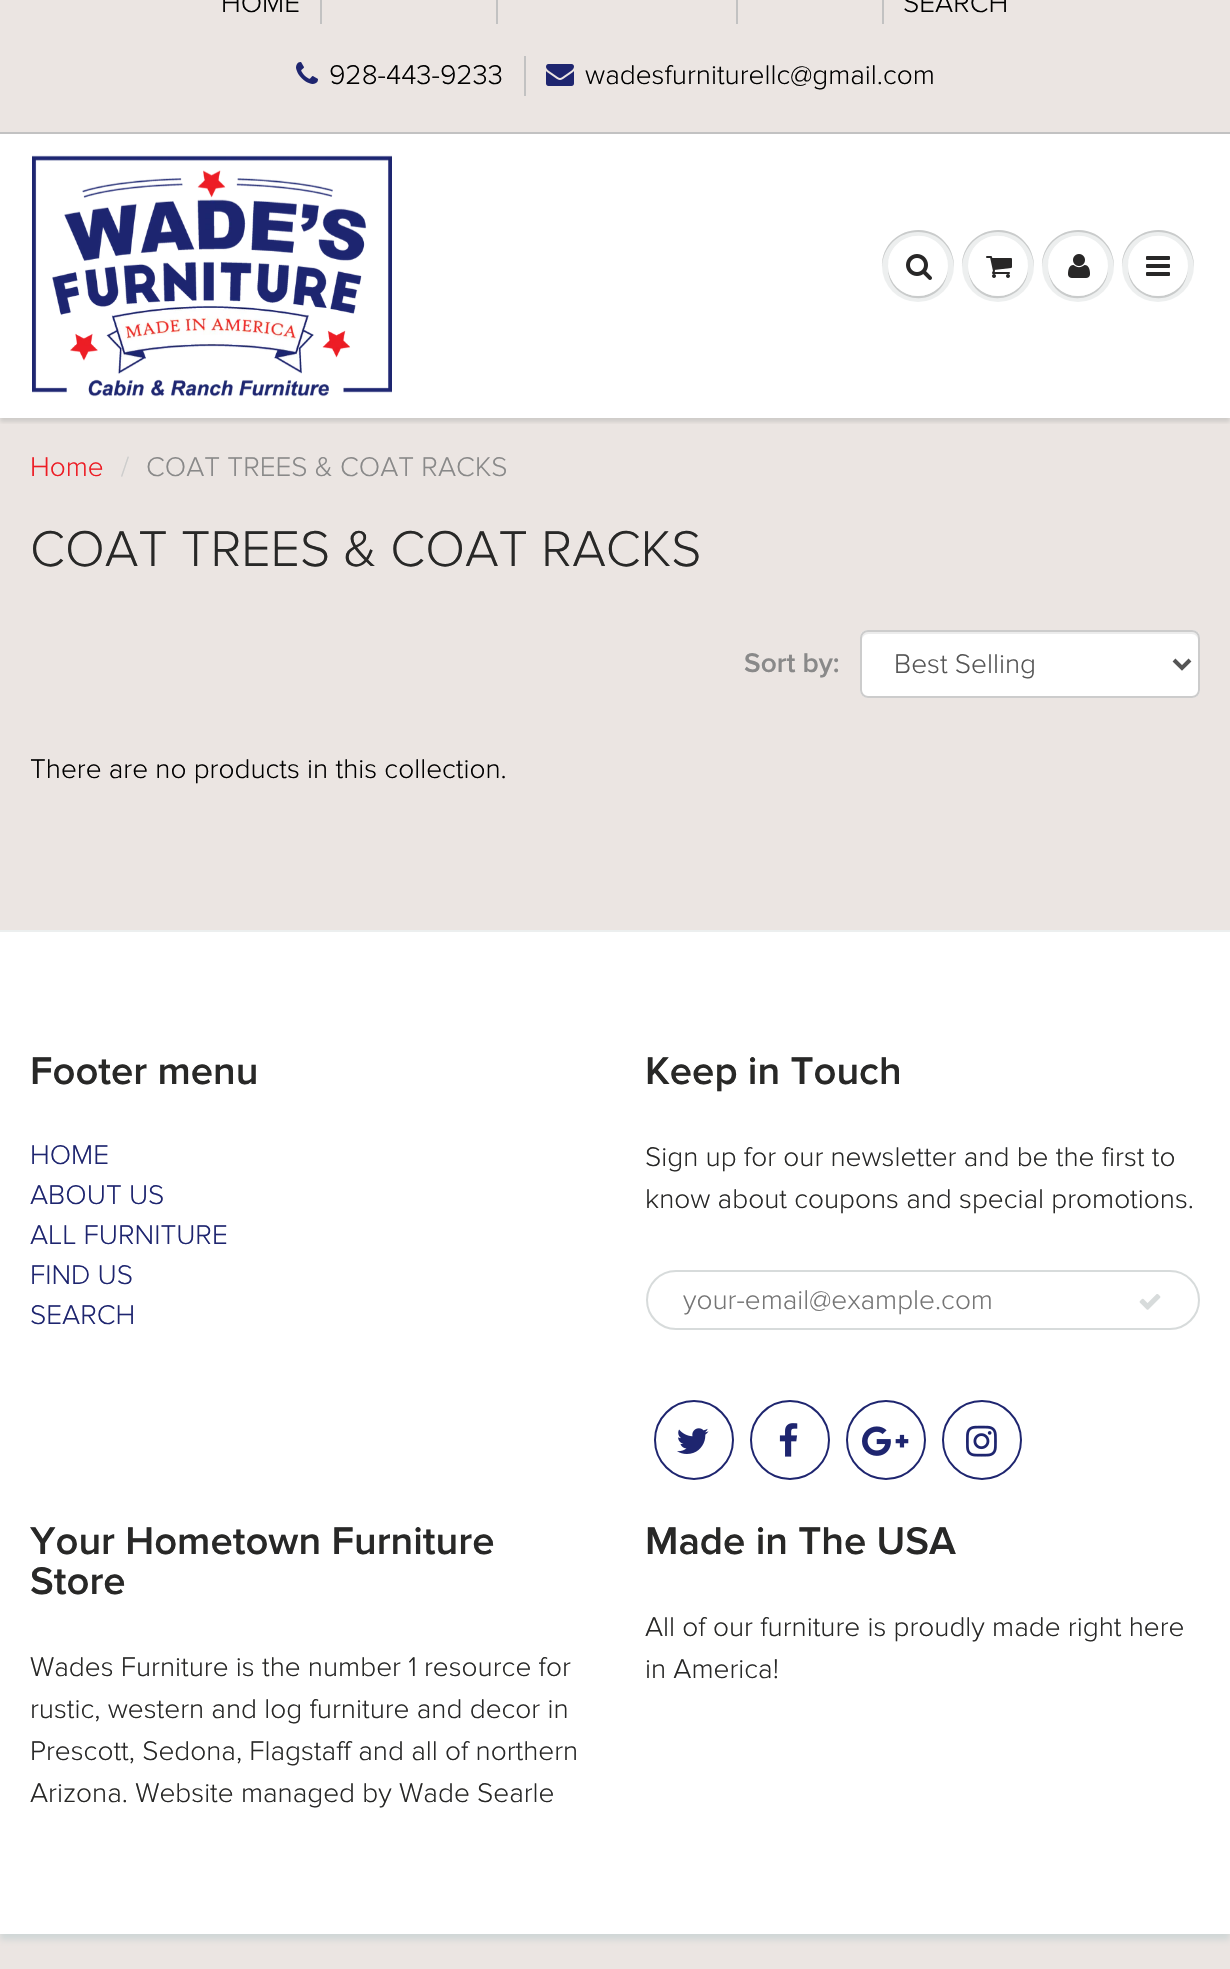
static SkFont makeFont(const char* family, int weight, float size, bool italic = false) {
  SkFontStyle style(weight, SkFontStyle::kNormal_Width,
    italic ? SkFontStyle::kItalic_Slant : SkFontStyle::kUpright_Slant);
  SkFont result(fontMgr->matchFamilyStyle(family, style), size);
  result.setSubpixel(true);
  return result;
}

static void text(SkCanvas* c, const char* s, float x, float y, const SkFont& font, SkColor color) {
  SkPaint ink(SkColor4f::FromColor(color));
  ink.setAntiAlias(true);
  c->drawString(s, x, y, font, ink);
}

static void box(SkCanvas* c, float l, float t, float r, float b, SkColor color) {
  SkPaint ink(SkColor4f::FromColor(color));
  ink.setAntiAlias(true);
  c->drawRect(SkRect::MakeLTRB(l, t, r, b), ink);
}

static void roundBox(SkCanvas* c, float l, float t, float r, float b, float radius, SkColor color) {
  SkPaint ink(SkColor4f::FromColor(color));
  ink.setAntiAlias(true);
  c->drawRoundRect(SkRect::MakeLTRB(l, t, r, b), radius, radius, ink);
}

static void picture(SkCanvas* c, const char* path, float l, float t, float r, float b) {
  auto image = SkImages::DeferredFromEncodedData(SkData::MakeFromFileName(path));
  c->drawImageRect(image, SkRect::MakeLTRB(l, t, r, b), SkSamplingOptions());
}

void draw(SkCanvas* c) {
  SkPaint paint;
  paint.setAntiAlias(true);
  c->clear(0xffffffff);
  box(c, 0, 0, 1230, 132, 0xffebe5e2);
  SkFont face1 = makeFont("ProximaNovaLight", 300, 28);
  text(c, "HOME", 221, 12, face1, 0xff000000);
  box(c, 320, 0, 322, 24, 0xffc2c2c2);
  box(c, 496, 0, 498, 24, 0xffc2c2c2);
  box(c, 736, 0, 738, 24, 0xffc2c2c2);
  box(c, 882, 0, 884, 24, 0xffc2c2c2);
  text(c, "SEARCH", 903, 12, face1, 0xff000000);
  picture(c, "img_01.png", 296, 62, 318, 84);
  text(c, "928-443-9233", 329, 84, face1, 0xff000000);
  box(c, 524, 56, 526, 96, 0xffc2c2c2);
  picture(c, "img_02.png", 546, 64, 574, 86);
  text(c, "wadesfurniturellc@gmail.com", 585, 84, face1, 0xff000000);
  box(c, 0, 418, 1230, 930, 0xffebe5e2);
  c->save();
  c->clipRect(SkRect::MakeLTRB(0, 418, 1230, 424));
  paint.setColor(0x1f0b191c);
  paint.setMaskFilter(SkMaskFilter::MakeBlur(kNormal_SkBlurStyle, 2));
  c->drawRect(SkRect::MakeLTRB(0, 136, 1230, 422), paint);
  paint.setMaskFilter(nullptr);
  c->restore();
  box(c, 0, 132, 1230, 134, 0xffc2c2c2);
  picture(c, "img_03.png", 32, 155, 392, 397);
  paint.setColor(0xffedefef);
  c->drawCircle(918, 266, 36, paint);
  paint.setColor(0xffc9cbcb);
  c->drawPath(SkPathBuilder().moveTo(888, 267).cubicTo(887, 297, 926, 310, 943, 285).cubicTo(946, 280, 948, 273, 948, 267).cubicTo(947, 283, 934, 296, 918, 296).cubicTo(902, 296, 889, 283, 888, 267).close().detach(), paint);
  c->drawPath(SkPathBuilder().moveTo(918, 232).cubicTo(938, 232, 953, 247, 954, 267).cubicTo(954, 260, 952, 252, 948, 246).cubicTo(928, 216, 881, 231, 882, 267).cubicTo(883, 247, 898, 232, 918, 232).close().detach(), paint);
  paint.setColor(0xffffffff);
  c->drawCircle(918, 266, 30, paint);
  c->drawPath(SkPathBuilder().moveTo(918, 238).cubicTo(935, 238, 947, 250, 948, 267).cubicTo(948, 261, 946, 254, 943, 249).cubicTo(926, 224, 887, 237, 888, 267).cubicTo(889, 250, 901, 238, 918, 238).close().detach(), paint);
  picture(c, "img_04.png", 906, 254, 932, 280);
  paint.setColor(0xffedefef);
  c->drawCircle(998, 266, 36, paint);
  paint.setColor(0xffc9cbcb);
  c->drawPath(SkPathBuilder().moveTo(968, 267).cubicTo(968, 273, 970, 280, 973, 285).cubicTo(990, 310, 1029, 297, 1028, 267).cubicTo(1027, 283, 1014, 296, 998, 296).cubicTo(982, 296, 969, 283, 968, 267).close().detach(), paint);
  c->drawPath(SkPathBuilder().moveTo(998, 232).cubicTo(1018, 232, 1033, 247, 1034, 267).cubicTo(1034, 260, 1032, 252, 1028, 246).cubicTo(1008, 216, 961, 231, 962, 267).cubicTo(963, 247, 978, 232, 998, 232).close().detach(), paint);
  paint.setColor(0xffffffff);
  c->drawCircle(998, 266, 30, paint);
  c->drawPath(SkPathBuilder().moveTo(998, 238).cubicTo(1015, 238, 1027, 250, 1028, 267).cubicTo(1029, 237, 990, 224, 973, 249).cubicTo(970, 254, 968, 261, 968, 267).cubicTo(969, 250, 981, 238, 998, 238).close().detach(), paint);
  picture(c, "img_05.png", 986, 256, 1012, 278);
  paint.setColor(0xffedefef);
  c->drawCircle(1078, 266, 36, paint);
  paint.setColor(0xffc9cbcb);
  c->drawPath(SkPathBuilder().moveTo(1108, 267).cubicTo(1107, 283, 1094, 296, 1078, 296).cubicTo(1062, 296, 1049, 283, 1048, 267).cubicTo(1048, 273, 1050, 280, 1053, 285).cubicTo(1070, 310, 1109, 297, 1108, 267).close().detach(), paint);
  c->drawPath(SkPathBuilder().moveTo(1078, 232).cubicTo(1098, 232, 1113, 247, 1114, 267).cubicTo(1114, 260, 1112, 252, 1108, 246).cubicTo(1088, 216, 1041, 231, 1042, 267).cubicTo(1043, 247, 1058, 232, 1078, 232).close().detach(), paint);
  paint.setColor(0xffffffff);
  c->drawCircle(1078, 266, 30, paint);
  c->drawPath(SkPathBuilder().moveTo(1078, 238).cubicTo(1095, 238, 1107, 250, 1108, 267).cubicTo(1108, 261, 1106, 254, 1103, 249).cubicTo(1086, 224, 1047, 237, 1048, 267).cubicTo(1049, 250, 1061, 238, 1078, 238).close().detach(), paint);
  picture(c, "img_06.png", 1068, 254, 1090, 278);
  paint.setColor(0xffedefef);
  c->drawCircle(1158, 266, 36, paint);
  paint.setColor(0xffc9cbcb);
  c->drawPath(SkPathBuilder().moveTo(1188, 267).cubicTo(1187, 283, 1174, 296, 1158, 296).cubicTo(1142, 296, 1129, 283, 1128, 267).cubicTo(1127, 297, 1166, 310, 1183, 285).cubicTo(1186, 280, 1188, 273, 1188, 267).close().detach(), paint);
  c->drawPath(SkPathBuilder().moveTo(1158, 232).cubicTo(1178, 232, 1193, 247, 1194, 267).cubicTo(1194, 260, 1192, 252, 1188, 246).cubicTo(1168, 216, 1121, 231, 1122, 267).cubicTo(1123, 247, 1138, 232, 1158, 232).close().detach(), paint);
  paint.setColor(0xffffffff);
  c->drawCircle(1158, 266, 30, paint);
  c->drawPath(SkPathBuilder().moveTo(1158, 238).cubicTo(1175, 238, 1187, 250, 1188, 267).cubicTo(1188, 261, 1186, 254, 1183, 249).cubicTo(1166, 224, 1127, 237, 1128, 267).cubicTo(1129, 250, 1141, 238, 1158, 238).close().detach(), paint);
  picture(c, "img_07.png", 1146, 256, 1170, 276);
  text(c, "Home", 30, 476, face1, 0xffed1c24);
  text(c, "/", 121, 476, face1, 0xffcccccc);
  text(c, "COAT TREES & COAT RACKS", 146, 476, face1, 0xff898989);
  SkFont face2 = makeFont("ProximaNovaLight", 300, 52);
  text(c, "COAT TREES & COAT RACKS", 30, 566, face2, 0xff282827);
  SkFont face3 = makeFont("ProximaNovaLight", 600, 28);
  text(c, "Sort by:", 744, 672, face3, 0xff898989);
  roundBox(c, 860, 630, 1200, 698, 8, 0xffffffff);
  paint.setColor(0xffececec);
  c->drawPath(SkPathBuilder().moveTo(868, 634).lineTo(1192, 634).cubicTo(1195, 634, 1198, 637, 1198, 640).lineTo(1198, 638).cubicTo(1198, 635, 1195, 632, 1192, 632).lineTo(868, 632).cubicTo(865, 632, 862, 635, 862, 638).lineTo(862, 640).cubicTo(862, 637, 865, 634, 868, 634).close().detach(), paint);
  paint.setStyle(SkPaint::kStroke_Style);
  paint.setStrokeWidth(2);
  paint.setColor(0xffcccccc);
  c->drawRoundRect(SkRect::MakeLTRB(861, 631, 1199, 697), 7, 7, paint);
  paint.setStrokeWidth(4);
  paint.setColor(0xff555555);
  c->drawPath(SkPathBuilder().moveTo(1174, 660).lineTo(1182, 668).lineTo(1190, 660).detach(), paint);
  text(c, "Best Selling", 894, 673, face1, 0xff555555);
  text(c, "There are no products in this collection.", 30, 778, face1, 0xff000000);
  box(c, 0, 1934, 1230, 1969, 0xffebe5e2);
  c->save();
  c->clipRect(SkRect::MakeLTRB(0, 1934, 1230, 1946));
  paint.setStyle(SkPaint::kFill_Style);
  paint.setColor(0xffd1d7d7);
  paint.setMaskFilter(SkMaskFilter::MakeBlur(kNormal_SkBlurStyle, 3));
  c->drawRect(SkRect::MakeLTRB(0, 936, 1230, 1940), paint);
  paint.setMaskFilter(nullptr);
  c->restore();
  box(c, 0, 930, 1230, 932, 0xffecefef);
  SkFont face4 = makeFont("ProximaNovaLight", 600, 40);
  text(c, "Footer menu", 30, 1084, face4, 0xff282827);
  text(c, "HOME", 30, 1164, face1, 0xff1e256f);
  text(c, "ABOUT US", 30, 1204, face1, 0xff1e256f);
  text(c, "ALL FURNITURE", 30, 1244, face1, 0xff1e256f);
  text(c, "FIND US", 30, 1284, face1, 0xff1e256f);
  text(c, "SEARCH", 30, 1324, face1, 0xff1e256f);
  text(c, "Keep in Touch", 645, 1084, face4, 0xff282827);
  text(c, "Sign up for our newsletter and be the first to", 645, 1166, face1, 0xff282827);
  text(c, "know about coupons and special promotions.", 645, 1208, face1, 0xff282827);
  paint.setStyle(SkPaint::kStroke_Style);
  paint.setStrokeWidth(2);
  paint.setColor(0xffd7dbdb);
  c->drawRoundRect(SkRect::MakeLTRB(647, 1271, 1199, 1329), 29, 29, paint);
  text(c, "your-email@example.com", 683, 1309, face1, 0xff757575);
  picture(c, "img_08.png", 1139, 1294, 1161, 1310);
  paint.setColor(0xff1e256f);
  c->drawCircle(694, 1440, 39, paint);
  picture(c, "img_09.png", 677, 1428, 709, 1454);
  c->drawCircle(790, 1440, 39, paint);
  picture(c, "img_10.png", 779, 1423, 798, 1457);
  c->drawCircle(886, 1440, 39, paint);
  picture(c, "img_11.png", 862, 1426, 909, 1456);
  c->drawCircle(982, 1440, 39, paint);
  picture(c, "img_12.png", 966, 1425, 997, 1457);
  text(c, "Your Hometown Furniture", 30, 1554, face4, 0xff282827);
  text(c, "Store", 30, 1594, face4, 0xff282827);
  text(c, "Wades Furniture is the number 1 resource for", 30, 1676, face1, 0xff282827);
  text(c, "rustic, western and log furniture and decor in", 30, 1718, face1, 0xff282827);
  text(c, "Prescott, Sedona, Flagstaff and all of northern", 30, 1760, face1, 0xff282827);
  text(c, "Arizona. Website managed by Wade Searle", 30, 1802, face1, 0xff282827);
  text(c, "Made in The USA", 645, 1554, face4, 0xff282827);
  text(c, "All of our furniture is proudly made right here", 645, 1636, face1, 0xff282827);
  text(c, "in America!", 645, 1678, face1, 0xff282827);
}
